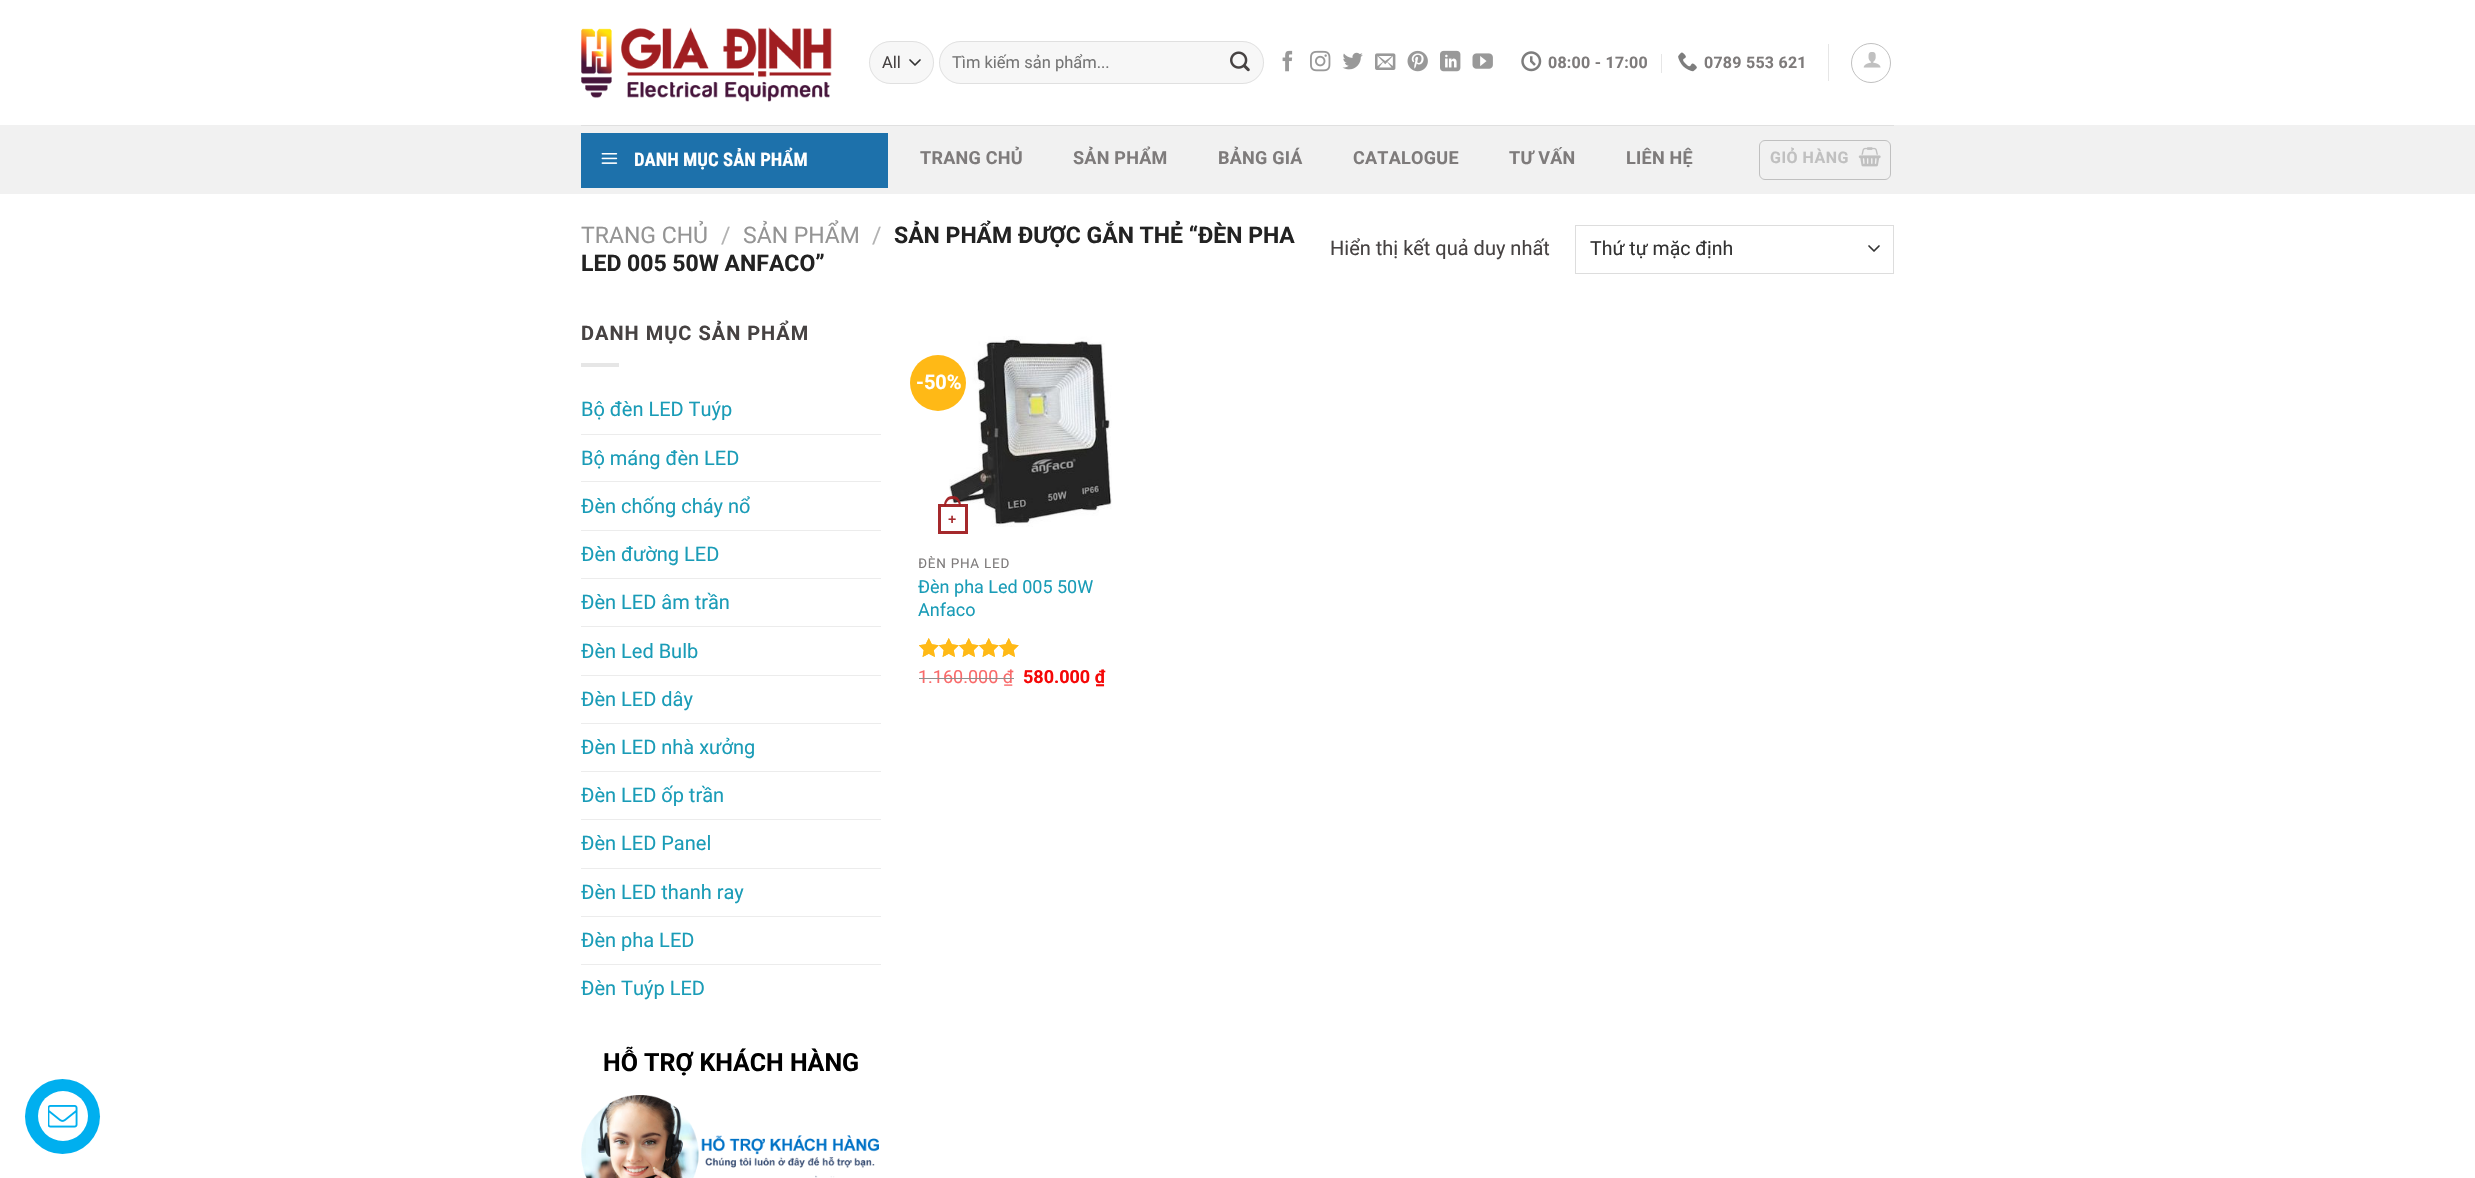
static SkFont makeFont(const char* family, int weight, float size, bool italic = false) {
  SkFontStyle style(weight, SkFontStyle::kNormal_Width,
    italic ? SkFontStyle::kItalic_Slant : SkFontStyle::kUpright_Slant);
  SkFont result(fontMgr->matchFamilyStyle(family, style), size);
  result.setSubpixel(true);
  return result;
}

static void text(SkCanvas* c, const char* s, float x, float y, const SkFont& font, SkColor color) {
  SkPaint ink(SkColor4f::FromColor(color));
  ink.setAntiAlias(true);
  c->drawString(s, x, y, font, ink);
}

static void spacedText(SkCanvas* c, const char* s, float x, float y, const SkFont& font, const SkPaint& ink, float letter, float word) {
  std::vector<SkGlyphID> glyphs(font.countText(s, strlen(s), SkTextEncoding::kUTF8));
  std::vector<float> xs(glyphs.size());
  font.textToGlyphs(s, strlen(s), SkTextEncoding::kUTF8, glyphs);
  font.getXPos(glyphs, xs, x);
  float extra = 0;
  for (size_t i = 0; i < glyphs.size(); i++) {
    xs[i] += extra;
    extra += letter + word * (glyphs[i] == font.unicharToGlyph(' '));
  }
  c->drawTextBlob(SkTextBlob::MakeFromPosHGlyphs(glyphs, xs, y, font), 0, 0, ink);
}

static void box(SkCanvas* c, float l, float t, float r, float b, SkColor color) {
  SkPaint ink(SkColor4f::FromColor(color));
  ink.setAntiAlias(true);
  c->drawRect(SkRect::MakeLTRB(l, t, r, b), ink);
}

static void roundBox(SkCanvas* c, float l, float t, float r, float b, float radius, SkColor color) {
  SkPaint ink(SkColor4f::FromColor(color));
  ink.setAntiAlias(true);
  c->drawRoundRect(SkRect::MakeLTRB(l, t, r, b), radius, radius, ink);
}

static void picture(SkCanvas* c, const char* path, float l, float t, float r, float b) {
  auto image = SkImages::DeferredFromEncodedData(SkData::MakeFromFileName(path));
  c->drawImageRect(image, SkRect::MakeLTRB(l, t, r, b), SkSamplingOptions());
}

void draw(SkCanvas* c) {
  SkPaint paint;
  paint.setAntiAlias(true);
  c->clear(0xffffffff);
  picture(c, "img_01.png", 581, 27, 832, 102);
  roundBox(c, 869, 41, 934, 84, 21.5f, 0xfff7f7f7);
  paint.setStyle(SkPaint::kStroke_Style);
  paint.setStrokeWidth(1.7f);
  paint.setStrokeCap(SkPaint::kRound_Cap);
  paint.setStrokeJoin(SkPaint::kRound_Join);
  paint.setColor(0xff333333);
  c->drawPath(SkPathBuilder().moveTo(910, 60).lineTo(915, 65).lineTo(920, 60).detach(), paint);
  paint.setStrokeWidth(1);
  paint.setStrokeCap(SkPaint::kButt_Cap);
  paint.setStrokeJoin(SkPaint::kMiter_Join);
  paint.setColor(0x17000000);
  c->drawRoundRect(SkRect::MakeLTRB(869.5f, 41.5f, 933.5f, 83.5f), 21, 21, paint);
  SkFont face1 = makeFont("Roboto", 400, 16.5f);
  text(c, "All", 882, 68, face1, 0xff464242);
  roundBox(c, 939, 41, 1264, 84, 21.5f, 0xfff7f7f7);
  c->drawRoundRect(SkRect::MakeLTRB(939.5f, 41.5f, 1263.5f, 83.5f), 21, 21, paint);
  text(c, "Tìm kiếm sản phẩm...", 952, 68, face1, 0xff757575);
  picture(c, "img_02.png", 1230, 51, 1250, 72);
  picture(c, "img_03.png", 1282, 50, 1293, 72);
  picture(c, "img_04.png", 1310, 50, 1331, 72);
  picture(c, "img_05.png", 1342, 52, 1363, 70);
  picture(c, "img_06.png", 1375, 53, 1396, 70);
  picture(c, "img_07.png", 1407, 50, 1428, 72);
  picture(c, "img_08.png", 1440, 50, 1461, 72);
  picture(c, "img_09.png", 1472, 53, 1493, 69);
  picture(c, "img_10.png", 1521, 51, 1542, 72);
  SkFont face2 = makeFont("Roboto", 700, 16);
  paint.setStyle(SkPaint::kFill_Style);
  paint.setColor(0xff7e7b7b);
  spacedText(c, "08:00 - 17:00", 1548, 68, face2, paint, 0.25f, 0);
  box(c, 1661, 54, 1662, 73, 0xffe6e6e6);
  picture(c, "img_11.png", 1678, 52, 1697, 72);
  spacedText(c, "0789 553 621", 1704, 68, face2, paint, 0.25f, 0);
  box(c, 1828, 44, 1829, 81, 0xffe6e6e6);
  paint.setStyle(SkPaint::kStroke_Style);
  paint.setColor(0xffc0c0c0);
  c->drawCircle(1871, 63, 19.5f, paint);
  picture(c, "img_12.png", 1863, 52, 1881, 68);
  box(c, 0, 125, 2475, 194, 0xfff1f1f1);
  box(c, 581, 125, 1894, 126, 0xffe0e0e0);
  box(c, 581, 133, 888, 188, 0xff1d71ab);
  picture(c, "img_13.png", 601, 153, 618, 164);
  SkFont face3 = makeFont("Roboto Condensed", 700, 18.75f);
  text(c, "DANH MỤC SẢN PHẨM", 634, 166, face3, 0xffffffff);
  SkFont face4 = makeFont("Roboto", 700, 18);
  paint.setStyle(SkPaint::kFill_Style);
  paint.setColor(0xff7e7b7b);
  spacedText(c, "TRANG CHỦ", 920, 164, face4, paint, 0.25f, 0);
  spacedText(c, "SẢN PHẨM", 1073, 164, face4, paint, 0.25f, 0);
  spacedText(c, "BẢNG GIÁ", 1218, 164, face4, paint, 0.25f, 0);
  spacedText(c, "CATALOGUE", 1353, 164, face4, paint, 0.25f, 0);
  spacedText(c, "TƯ VẤN", 1509, 164, face4, paint, 0.25f, 0);
  spacedText(c, "LIÊN HỆ", 1626, 164, face4, paint, 0.25f, 0);
  paint.setStyle(SkPaint::kStroke_Style);
  paint.setColor(0xffc0c0c0);
  c->drawRoundRect(SkRect::MakeLTRB(1759.5f, 140.5f, 1890.5f, 179.5f), 5.5f, 5.5f, paint);
  paint.setStyle(SkPaint::kFill_Style);
  spacedText(c, "GIỎ HÀNG", 1770, 163, face2, paint, 0.5f, 0);
  picture(c, "img_14.png", 1858, 147, 1881, 167);
  SkFont face5 = makeFont("Roboto", 400, 23);
  text(c, "TRANG CHỦ", 581, 243, face5, 0xff949494);
  text(c, "/", 721, 243, face5, 0xffb2b2b2);
  text(c, "SẢN PHẨM", 743, 243, face5, 0xff949494);
  text(c, "/", 872, 243, face5, 0xffb2b2b2);
  SkFont face6 = makeFont("Roboto", 700, 23);
  text(c, "SẢN PHẨM ĐƯỢC GẮN THẺ “ĐÈN PHA", 894, 243, face6, 0xff222222);
  text(c, "LED 005 50W ANFACO”", 581, 271, face6, 0xff222222);
  SkFont face7 = makeFont("Roboto", 400, 20);
  text(c, "Hiển thị kết quả duy nhất", 1330, 255, face7, 0xff464242);
  paint.setStyle(SkPaint::kStroke_Style);
  paint.setStrokeWidth(1.7f);
  paint.setStrokeCap(SkPaint::kRound_Cap);
  paint.setStrokeJoin(SkPaint::kRound_Join);
  paint.setColor(0xff333333);
  c->drawPath(SkPathBuilder().moveTo(1869, 246).lineTo(1874, 251).lineTo(1879, 246).detach(), paint);
  paint.setStrokeWidth(1);
  paint.setStrokeCap(SkPaint::kButt_Cap);
  paint.setStrokeJoin(SkPaint::kMiter_Join);
  paint.setColor(0xffdddddd);
  c->drawRect(SkRect::MakeLTRB(1575.5f, 225.5f, 1893.5f, 273.5f), paint);
  SkFont face8 = makeFont("Roboto", 400, 19.5f);
  text(c, "Thứ tự mặc định", 1590, 255, face8, 0xff333333);
  SkFont face9 = makeFont("Roboto", 700, 20);
  paint.setStyle(SkPaint::kFill_Style);
  paint.setColor(0xff464242);
  spacedText(c, "DANH MỤC SẢN PHẨM", 581, 340, face9, paint, 1, 0);
  box(c, 581, 363, 619, 367, 0xffe6e6e6);
  text(c, "Bộ đèn LED Tuýp", 581, 416, face7, 0xff1a9cb7);
  box(c, 581, 434, 881, 435, 0xffececec);
  text(c, "Bộ máng đèn LED", 581, 465, face7, 0xff1a9cb7);
  box(c, 581, 481, 881, 482, 0xffececec);
  text(c, "Đèn chống cháy nổ", 581, 513, face7, 0xff1a9cb7);
  box(c, 581, 530, 881, 531, 0xffececec);
  text(c, "Đèn đường LED", 581, 561, face7, 0xff1a9cb7);
  box(c, 581, 578, 881, 579, 0xffececec);
  text(c, "Đèn LED âm trần", 581, 609, face7, 0xff1a9cb7);
  box(c, 581, 626, 881, 627, 0xffececec);
  text(c, "Đèn Led Bulb", 581, 658, face7, 0xff1a9cb7);
  box(c, 581, 675, 881, 676, 0xffececec);
  text(c, "Đèn LED dây", 581, 706, face7, 0xff1a9cb7);
  box(c, 581, 723, 881, 724, 0xffececec);
  text(c, "Đèn LED nhà xưởng", 581, 754, face7, 0xff1a9cb7);
  box(c, 581, 771, 881, 772, 0xffececec);
  text(c, "Đèn LED ốp trần", 581, 802, face7, 0xff1a9cb7);
  box(c, 581, 819, 881, 820, 0xffececec);
  text(c, "Đèn LED Panel", 581, 850, face7, 0xff1a9cb7);
  box(c, 581, 868, 881, 869, 0xffececec);
  text(c, "Đèn LED thanh ray", 581, 899, face7, 0xff1a9cb7);
  box(c, 581, 916, 881, 917, 0xffececec);
  text(c, "Đèn pha LED", 581, 947, face7, 0xff1a9cb7);
  box(c, 581, 964, 881, 965, 0xffececec);
  text(c, "Đèn Tuýp LED", 581, 995, face7, 0xff1a9cb7);
  SkFont face10 = makeFont("Roboto", 700, 25);
  text(c, "HỖ TRỢ KHÁCH HÀNG", 603, 1071, face10, 0xff000000);
  picture(c, "img_15.png", 581, 1095, 879, 1178);
  picture(c, "img_16.png", 949, 336, 1112, 527);
  paint.setColor(0xffffb916);
  c->drawCircle(938, 383, 28, paint);
  text(c, "-50%", 916, 389, face9, 0xffffffff);
  paint.setStyle(SkPaint::kStroke_Style);
  paint.setStrokeWidth(3);
  paint.setColor(0xffa5292c);
  c->drawRect(SkRect::MakeLTRB(939.5f, 505.5f, 966.5f, 532.5f), paint);
  paint.setStyle(SkPaint::kFill_Style);
  paint.setColor(0xf2a01e21);
  c->drawPath(SkPathBuilder(SkPathFillType::kEvenOdd).moveTo(952.5f, 496).cubicTo(958.5f, 496, 961, 501, 961, 506).lineTo(944, 506).cubicTo(944, 501, 946.5f, 496, 952.5f, 496).close().moveTo(952.5f, 499).cubicTo(957, 499, 959, 502.5f, 959, 506).lineTo(946, 506).cubicTo(946, 502.5f, 948, 499, 952.5f, 499).close().detach(), paint);
  SkFont face11 = makeFont("Liberation Sans", 700, 14);
  text(c, "+", 948, 524, face11, 0xffa5292c);
  c->save();
  c->clipRect(SkRect::MakeLTRB(919, 556, 1144, 573));
  SkFont face12 = makeFont("Roboto", 400, 13.5f);
  paint.setColor(0xff7e7b7b);
  spacedText(c, "ĐÈN PHA LED", 918, 568, face12, paint, 0.75f, 0);
  c->restore();
  SkFont face13 = makeFont("Roboto", 400, 18);
  text(c, "Đèn pha Led 005 50W", 918, 593, face13, 0xff1a9cb7);
  text(c, "Anfaco", 918, 616, face13, 0xff1a9cb7);
  picture(c, "img_17.png", 919, 638, 1019, 657);
  picture(c, "img_18.png", 919, 638, 1019, 657);
  text(c, "1.160.000 ₫", 918, 683, face13, 0xfff96a6a);
  box(c, 919, 678, 1014, 679, 0xff908e8e);
  text(c, "580.000 ₫", 1023, 683, face4, 0xfff50707);
  paint.setColor(0xff00afef);
  c->drawCircle(62.5f, 1116.5f, 37.5f, paint);
  paint.setColor(0xffffffff);
  c->drawCircle(63, 1116, 25, paint);
  picture(c, "img_19.png", 48, 1105, 78, 1128);
}
